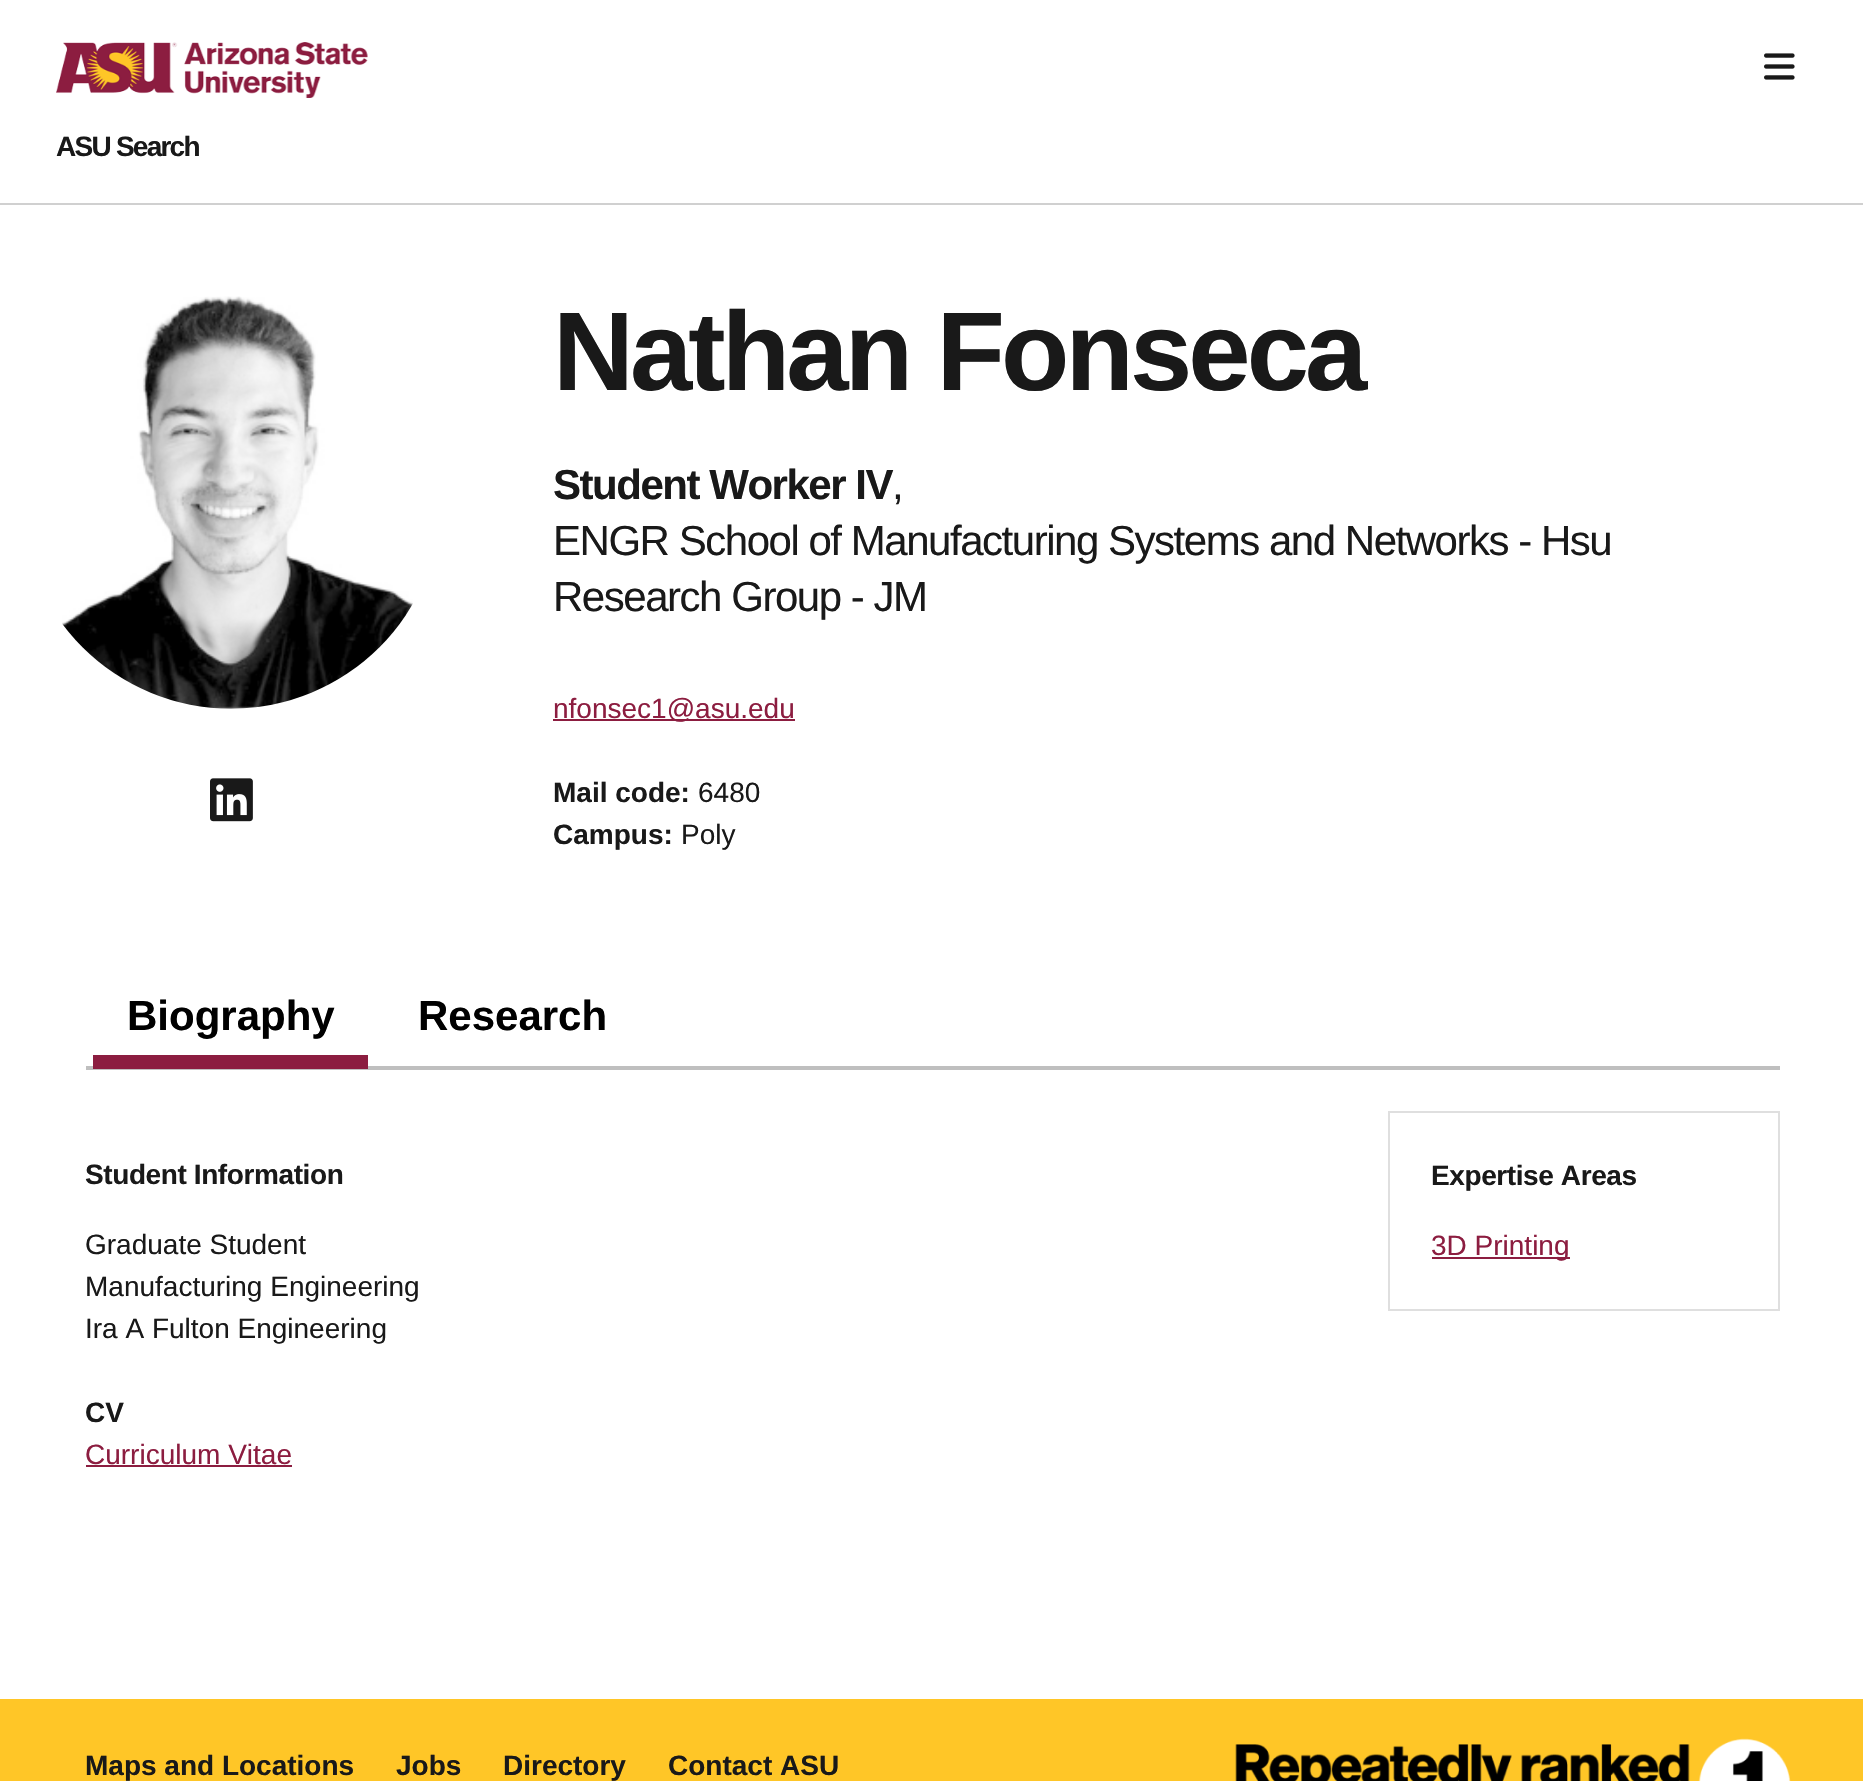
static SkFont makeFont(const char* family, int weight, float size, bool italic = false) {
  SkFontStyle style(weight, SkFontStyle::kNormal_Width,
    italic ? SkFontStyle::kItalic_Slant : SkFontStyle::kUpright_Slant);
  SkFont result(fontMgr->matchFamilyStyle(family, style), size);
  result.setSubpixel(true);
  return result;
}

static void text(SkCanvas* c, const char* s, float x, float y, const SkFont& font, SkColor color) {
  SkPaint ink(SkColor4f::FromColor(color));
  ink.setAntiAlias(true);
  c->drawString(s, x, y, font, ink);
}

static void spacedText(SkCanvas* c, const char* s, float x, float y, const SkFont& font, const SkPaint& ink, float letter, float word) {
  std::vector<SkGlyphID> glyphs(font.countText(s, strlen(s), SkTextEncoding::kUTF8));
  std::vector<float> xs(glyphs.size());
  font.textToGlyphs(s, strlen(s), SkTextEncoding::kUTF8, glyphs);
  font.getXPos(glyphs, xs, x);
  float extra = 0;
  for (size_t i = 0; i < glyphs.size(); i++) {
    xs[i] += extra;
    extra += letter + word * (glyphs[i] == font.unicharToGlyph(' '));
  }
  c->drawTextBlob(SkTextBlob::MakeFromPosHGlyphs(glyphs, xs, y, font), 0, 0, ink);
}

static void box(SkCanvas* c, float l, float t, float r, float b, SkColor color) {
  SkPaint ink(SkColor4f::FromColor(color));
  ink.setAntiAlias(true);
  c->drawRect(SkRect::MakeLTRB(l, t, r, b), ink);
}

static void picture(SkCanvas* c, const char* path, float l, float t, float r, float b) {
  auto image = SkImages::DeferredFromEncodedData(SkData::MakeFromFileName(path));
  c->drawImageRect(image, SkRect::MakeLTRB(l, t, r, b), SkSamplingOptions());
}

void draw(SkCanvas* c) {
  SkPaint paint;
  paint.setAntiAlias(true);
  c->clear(0xffffffff);
  box(c, 0, 203, 1863, 205, 0xffd0d0d0);
  picture(c, "img_01.png", 56, 42, 368, 98);
  picture(c, "img_02.png", 1764, 53, 1795, 80);
  SkFont face1 = makeFont("Liberation Sans", 700, 28);
  paint.setColor(0xff191919);
  spacedText(c, "ASU Search", 56, 156, face1, paint, -1.75f, 0);
  picture(c, "img_03.png", 62, 296, 413, 709);
  picture(c, "img_04.png", 210, 778, 253, 822);
  SkFont face2 = makeFont("Liberation Sans", 700, 112);
  spacedText(c, "Nathan Fonseca", 553, 390, face2, paint, -3.9f, 0);
  SkFont face3 = makeFont("Liberation Sans", 700, 42);
  spacedText(c, "Student Worker IV", 553, 499, face3, paint, -1.47f, 0);
  SkFont face4 = makeFont("Liberation Sans", 400, 42);
  spacedText(c, ",", 892, 499, face4, paint, -1.47f, 0);
  spacedText(c, "ENGR School of Manufacturing Systems and Networks - Hsu", 553, 555, face4, paint, -1.47f, 0);
  spacedText(c, "Research Group - JM", 553, 611, face4, paint, -1.47f, 0);
  box(c, 553, 719, 795, 721, 0xff8c1d40);
  SkFont face5 = makeFont("Liberation Sans", 400, 28);
  text(c, "nfonsec1@asu.edu", 553, 718, face5, 0xff8c1d40);
  text(c, "Mail code:", 553, 802, face1, 0xff191919);
  text(c, "6480", 698, 802, face5, 0xff191919);
  text(c, "Campus:", 553, 844, face1, 0xff191919);
  text(c, "Poly", 681, 844, face5, 0xff191919);
  box(c, 86, 1066, 1780, 1070, 0xffbfbfbf);
  box(c, 93, 1055, 368, 1069, 0xff8c1d40);
  text(c, "Biography", 127, 1030, face3, 0xff000000);
  text(c, "Research", 418, 1030, face3, 0xff000000);
  spacedText(c, "Student Information", 85, 1184, face1, paint, -0.4f, 0);
  text(c, "Graduate Student", 85, 1254, face5, 0xff191919);
  text(c, "Manufacturing Engineering", 85, 1296, face5, 0xff191919);
  text(c, "Ira A Fulton Engineering", 85, 1338, face5, 0xff191919);
  text(c, "CV", 85, 1422, face1, 0xff191919);
  text(c, "Curriculum Vitae", 85, 1464, face5, 0xff8c1d40);
  box(c, 86, 1465, 292, 1467, 0xff8c1d40);
  paint.setStyle(SkPaint::kStroke_Style);
  paint.setStrokeWidth(2);
  paint.setColor(0xffdfdfdf);
  c->drawRect(SkRect::MakeLTRB(1389, 1112, 1779, 1310), paint);
  paint.setStyle(SkPaint::kFill_Style);
  paint.setColor(0xff191919);
  spacedText(c, "Expertise Areas", 1431, 1185, face1, paint, -0.4f, 0);
  box(c, 1432, 1257, 1570, 1259, 0xff8c1d40);
  text(c, "3D Printing", 1431, 1255, face5, 0xff8c1d40);
  box(c, 0, 1699, 1863, 1781, 0xffffc627);
  text(c, "Maps and Locations", 85, 1775, face1, 0xff191919);
  text(c, "Jobs", 396, 1775, face1, 0xff191919);
  text(c, "Directory", 503, 1775, face1, 0xff191919);
  text(c, "Contact ASU", 668, 1775, face1, 0xff191919);
  picture(c, "img_05.png", 1235, 1738, 1791, 1781);
}
